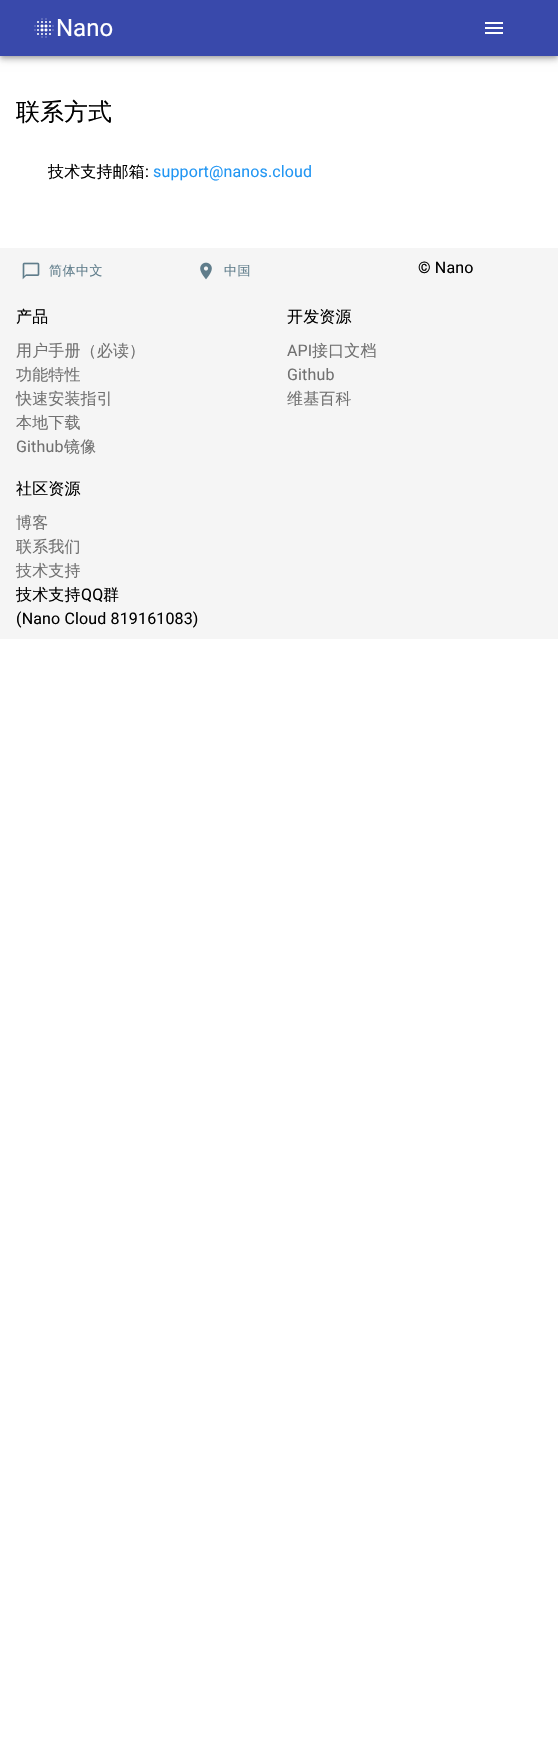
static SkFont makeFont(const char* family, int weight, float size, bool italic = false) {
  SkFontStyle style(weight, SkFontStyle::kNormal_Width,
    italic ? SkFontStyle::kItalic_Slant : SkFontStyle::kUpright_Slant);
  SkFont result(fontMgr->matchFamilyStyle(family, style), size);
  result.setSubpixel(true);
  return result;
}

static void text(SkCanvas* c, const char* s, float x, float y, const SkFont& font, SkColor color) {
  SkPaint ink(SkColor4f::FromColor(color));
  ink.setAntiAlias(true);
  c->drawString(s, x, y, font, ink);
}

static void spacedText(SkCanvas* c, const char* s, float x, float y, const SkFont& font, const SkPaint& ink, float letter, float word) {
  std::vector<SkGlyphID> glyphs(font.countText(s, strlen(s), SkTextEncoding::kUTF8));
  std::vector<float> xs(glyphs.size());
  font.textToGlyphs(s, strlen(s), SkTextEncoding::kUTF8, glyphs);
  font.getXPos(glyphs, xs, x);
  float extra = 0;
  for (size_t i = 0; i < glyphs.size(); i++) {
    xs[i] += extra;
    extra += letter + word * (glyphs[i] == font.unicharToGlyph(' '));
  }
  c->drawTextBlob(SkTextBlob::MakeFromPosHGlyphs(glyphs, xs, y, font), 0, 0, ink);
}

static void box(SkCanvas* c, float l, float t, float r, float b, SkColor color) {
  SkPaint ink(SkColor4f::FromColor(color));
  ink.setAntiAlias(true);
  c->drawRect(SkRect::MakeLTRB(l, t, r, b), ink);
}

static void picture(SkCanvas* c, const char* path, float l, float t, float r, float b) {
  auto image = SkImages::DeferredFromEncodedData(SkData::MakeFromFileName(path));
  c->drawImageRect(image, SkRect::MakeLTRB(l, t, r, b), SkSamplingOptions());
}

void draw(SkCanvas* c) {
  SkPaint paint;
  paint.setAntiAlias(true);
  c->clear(0xffffffff);
  paint.setColor(0x1f000000);
  paint.setMaskFilter(SkMaskFilter::MakeBlur(kNormal_SkBlurStyle, 5));
  c->drawRect(SkRect::MakeLTRB(0, 1, 558, 57), paint);
  paint.setMaskFilter(nullptr);
  paint.setColor(0x24000000);
  paint.setMaskFilter(SkMaskFilter::MakeBlur(kNormal_SkBlurStyle, 2.5f));
  c->drawRect(SkRect::MakeLTRB(0, 4, 558, 60), paint);
  paint.setMaskFilter(nullptr);
  paint.setColor(0x33000000);
  paint.setMaskFilter(SkMaskFilter::MakeBlur(kNormal_SkBlurStyle, 2));
  c->drawRect(SkRect::MakeLTRB(1, 3, 557, 57), paint);
  paint.setMaskFilter(nullptr);
  box(c, 0, 0, 558, 56, 0xff3949ab);
  picture(c, "img_01.png", 34, 18, 54, 38);
  SkFont face1 = makeFont("Roboto", 400, 24);
  text(c, "Nano", 56, 36, face1, 0xffffffff);
  picture(c, "img_02.png", 485, 22, 503, 34);
  SkFont face2 = makeFont("WenQuanYi Zen Hei", 500, 24);
  text(c, "联系方式", 16, 120, face2, 0xff000000);
  SkFont face3 = makeFont("WenQuanYi Zen Hei", 500, 16);
  paint.setColor(0xff000000);
  spacedText(c, "技术支持邮箱", 48, 177, face3, paint, 0.15f, 0);
  SkFont face4 = makeFont("Roboto", 400, 16);
  spacedText(c, ":", 145, 177, face4, paint, 0.15f, 0);
  paint.setColor(0xff2196f3);
  spacedText(c, "support@nanos.cloud", 153, 177, face4, paint, 0.15f, 0);
  box(c, 0, 248, 558, 639, 0xfff5f5f5);
  picture(c, "img_03.png", 22, 262, 40, 280);
  SkFont face5 = makeFont("WenQuanYi Zen Hei", 500, 13);
  paint.setColor(0xff607d8b);
  spacedText(c, "简体中文", 49, 275, face5, paint, 0.5f, 0);
  picture(c, "img_04.png", 200, 262, 212, 280);
  spacedText(c, "中国", 224, 275, face5, paint, 0.5f, 0);
  paint.setColor(0xff000000);
  spacedText(c, "© Nano", 418, 273, face4, paint, 0.15f, 0);
  spacedText(c, "产品", 16, 322, face3, paint, 0.15f, 0);
  paint.setColor(0xff717171);
  spacedText(c, "用户手册（必读）", 16, 356, face3, paint, 0.15f, 0);
  spacedText(c, "功能特性", 16, 380, face3, paint, 0.15f, 0);
  spacedText(c, "快速安装指引", 16, 404, face3, paint, 0.15f, 0);
  spacedText(c, "本地下载", 16, 428, face3, paint, 0.15f, 0);
  spacedText(c, "Github", 16, 452, face4, paint, 0.15f, 0);
  spacedText(c, "镜像", 64, 452, face3, paint, 0.15f, 0);
  paint.setColor(0xff000000);
  spacedText(c, "开发资源", 287, 322, face3, paint, 0.15f, 0);
  paint.setColor(0xff717171);
  spacedText(c, "API", 287, 356, face4, paint, 0.15f, 0);
  spacedText(c, "接口文档", 312, 356, face3, paint, 0.15f, 0);
  spacedText(c, "Github", 287, 380, face4, paint, 0.15f, 0);
  spacedText(c, "维基百科", 287, 404, face3, paint, 0.15f, 0);
  paint.setColor(0xff000000);
  spacedText(c, "社区资源", 16, 494, face3, paint, 0.15f, 0);
  paint.setColor(0xff717171);
  spacedText(c, "博客", 16, 528, face3, paint, 0.15f, 0);
  spacedText(c, "联系我们", 16, 552, face3, paint, 0.15f, 0);
  spacedText(c, "技术支持", 16, 576, face3, paint, 0.15f, 0);
  paint.setColor(0xff000000);
  spacedText(c, "技术支持", 16, 600, face3, paint, 0.15f, 0);
  spacedText(c, "QQ", 81, 600, face4, paint, 0.15f, 0);
  spacedText(c, "群", 103, 600, face3, paint, 0.15f, 0);
  spacedText(c, "(Nano Cloud 819161083)", 16, 624, face4, paint, 0.15f, 0);
}
